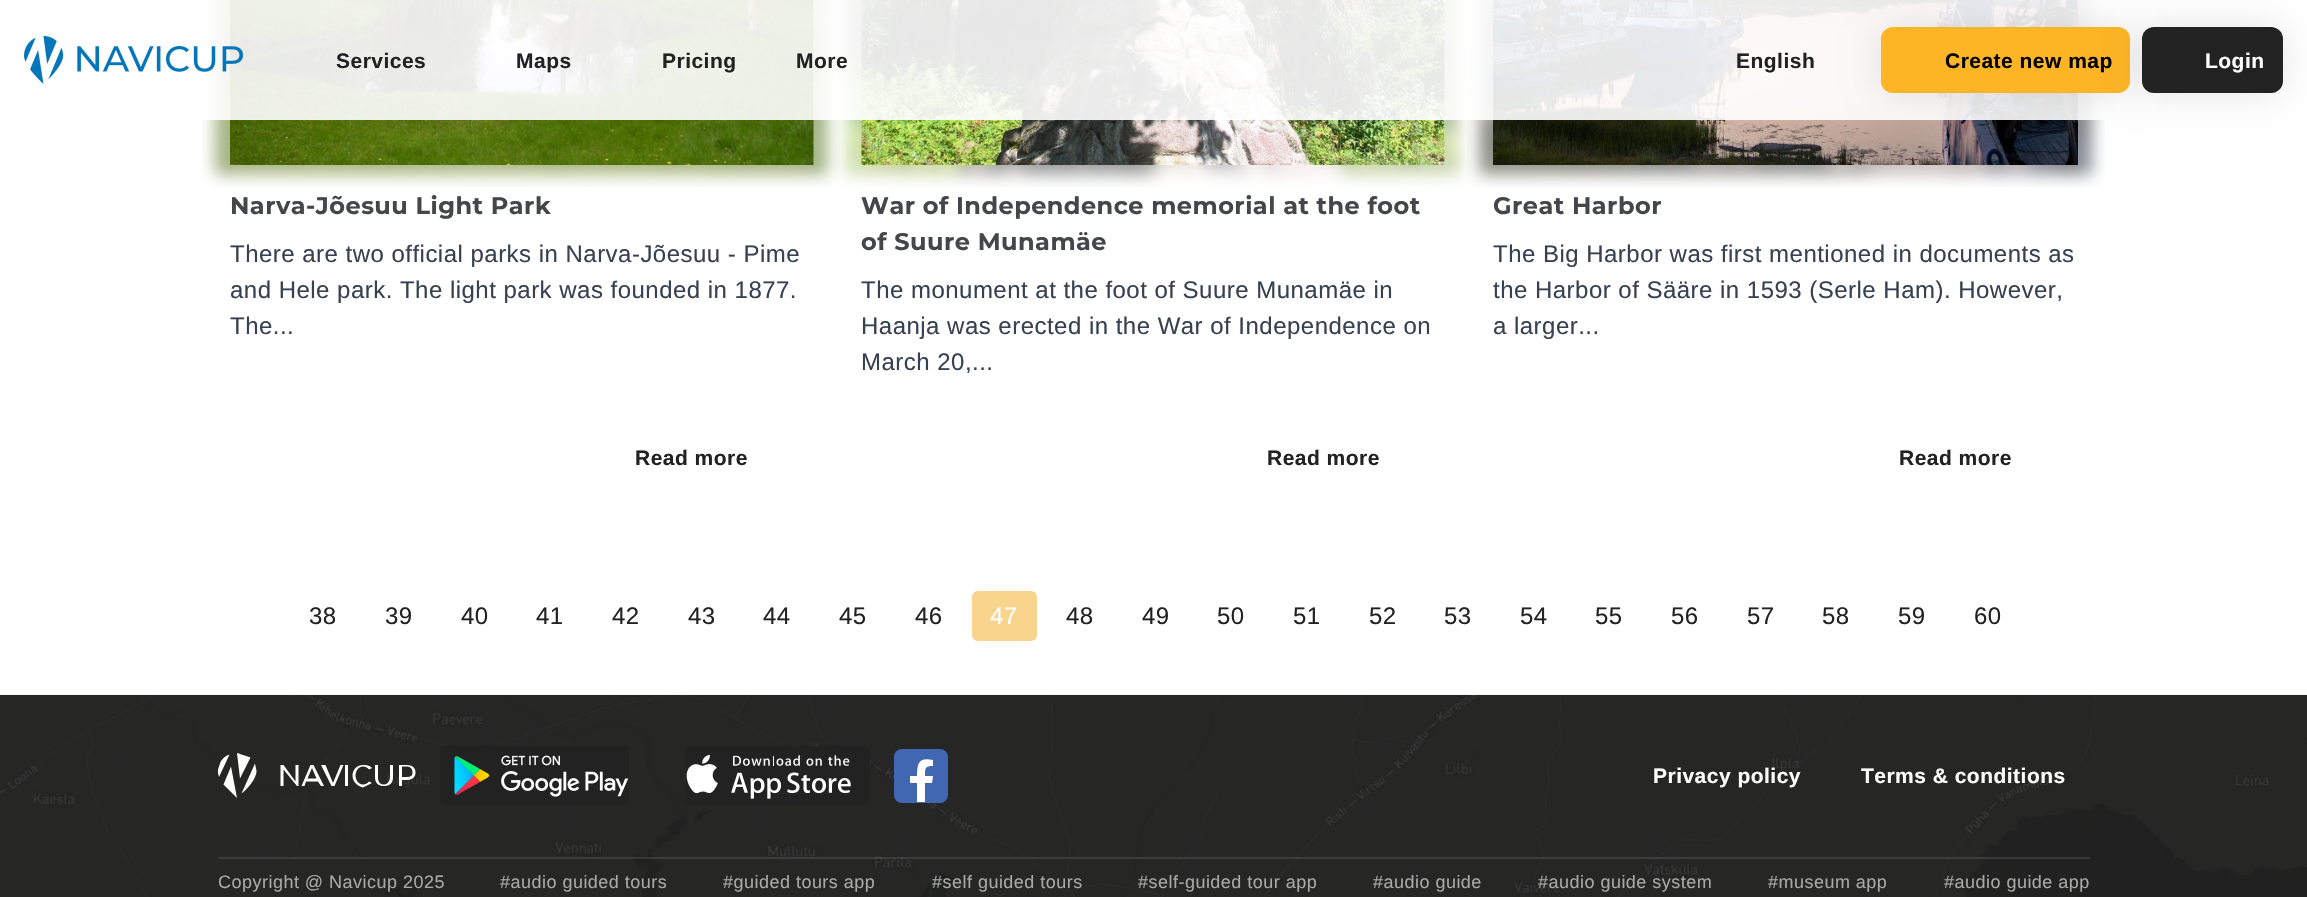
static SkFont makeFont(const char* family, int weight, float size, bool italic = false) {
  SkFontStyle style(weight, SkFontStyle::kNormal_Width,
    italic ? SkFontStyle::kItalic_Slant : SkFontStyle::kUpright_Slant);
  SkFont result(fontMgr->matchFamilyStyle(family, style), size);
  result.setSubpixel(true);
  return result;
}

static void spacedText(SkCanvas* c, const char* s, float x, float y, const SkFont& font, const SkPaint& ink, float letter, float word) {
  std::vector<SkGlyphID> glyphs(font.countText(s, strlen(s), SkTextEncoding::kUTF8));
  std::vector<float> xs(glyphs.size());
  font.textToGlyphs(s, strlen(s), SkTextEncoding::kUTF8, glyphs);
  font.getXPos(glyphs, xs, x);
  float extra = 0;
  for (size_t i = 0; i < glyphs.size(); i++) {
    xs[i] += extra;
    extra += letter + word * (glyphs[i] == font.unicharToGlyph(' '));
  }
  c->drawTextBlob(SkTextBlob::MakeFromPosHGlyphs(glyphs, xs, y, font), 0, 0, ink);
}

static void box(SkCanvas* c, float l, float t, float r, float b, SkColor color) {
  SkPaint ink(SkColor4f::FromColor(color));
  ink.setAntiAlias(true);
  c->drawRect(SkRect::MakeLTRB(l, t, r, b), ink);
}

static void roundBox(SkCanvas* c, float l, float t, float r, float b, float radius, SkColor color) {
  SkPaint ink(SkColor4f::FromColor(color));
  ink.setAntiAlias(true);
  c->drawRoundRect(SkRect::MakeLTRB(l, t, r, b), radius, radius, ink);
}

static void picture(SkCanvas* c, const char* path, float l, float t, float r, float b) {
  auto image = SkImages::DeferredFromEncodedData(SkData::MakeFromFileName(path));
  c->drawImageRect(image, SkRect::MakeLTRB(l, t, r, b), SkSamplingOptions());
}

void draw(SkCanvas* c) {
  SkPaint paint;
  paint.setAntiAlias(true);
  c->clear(0xffffffff);
  picture(c, "img_02.png", 202, 0, 840, 187);
  picture(c, "img_03.png", 230, 0, 814, 165);
  picture(c, "img_04.png", 834, 0, 1472, 187);
  picture(c, "img_05.png", 861, 0, 1445, 165);
  picture(c, "img_06.png", 1467, 0, 2105, 187);
  picture(c, "img_07.png", 1493, 0, 2078, 165);
  box(c, 202, 0, 2105, 120, 0xe6ffffff);
  picture(c, "img_01.png", 24, 36, 243, 84);
  SkFont face1 = makeFont("Liberation Sans", 700, 21);
  paint.setColor(0xff222222);
  spacedText(c, "Services", 336, 68, face1, paint, 0.48f, 0);
  spacedText(c, "Maps", 516, 68, face1, paint, 0.48f, 0);
  spacedText(c, "Pricing", 662, 68, face1, paint, 0.48f, 0);
  spacedText(c, "More", 796, 68, face1, paint, 0.48f, 0);
  spacedText(c, "English", 1736, 68, face1, paint, 0.48f, 0);
  paint.setColor(0x1a000000);
  paint.setMaskFilter(SkMaskFilter::MakeBlur(kNormal_SkBlurStyle, 18));
  c->drawRoundRect(SkRect::MakeLTRB(1881, 27, 2130, 93), 12, 12, paint);
  paint.setMaskFilter(nullptr);
  roundBox(c, 1881, 27, 2130, 93, 12, 0xfffdb525);
  paint.setColor(0xff000000);
  spacedText(c, "Create new map", 1945, 68, face1, paint, 0.48f, 0);
  paint.setColor(0x1a000000);
  paint.setMaskFilter(SkMaskFilter::MakeBlur(kNormal_SkBlurStyle, 18));
  c->drawRoundRect(SkRect::MakeLTRB(2142, 27, 2283, 93), 12, 12, paint);
  paint.setMaskFilter(nullptr);
  roundBox(c, 2142, 27, 2283, 93, 12, 0xff222222);
  paint.setColor(0xffffffff);
  spacedText(c, "Login", 2205, 68, face1, paint, 0.48f, 0);
  SkFont face2 = makeFont("Montserrat", 700, 24);
  paint.setColor(0xff44474a);
  spacedText(c, "Narva-Jõesuu Light Park", 230, 214, face2, paint, 0.48f, 0);
  SkFont face3 = makeFont("Liberation Sans", 400, 24);
  paint.setColor(0xff374151);
  spacedText(c, "There are two official parks in Narva-Jõesuu - Pime", 230, 262, face3, paint, 0.48f, 0);
  spacedText(c, "and Hele park. The light park was founded in 1877.", 230, 298, face3, paint, 0.48f, 0);
  spacedText(c, "The...", 230, 334, face3, paint, 0.48f, 0);
  paint.setColor(0xff222222);
  spacedText(c, "Read more", 635, 465, face1, paint, 0.48f, 0);
  paint.setColor(0xff44474a);
  spacedText(c, "War of Independence memorial at the foot", 861, 214, face2, paint, 0.48f, 0);
  spacedText(c, "of Suure Munamäe", 861, 250, face2, paint, 0.48f, 0);
  paint.setColor(0xff374151);
  spacedText(c, "The monument at the foot of Suure Munamäe in", 861, 298, face3, paint, 0.48f, 0);
  spacedText(c, "Haanja was erected in the War of Independence on", 861, 334, face3, paint, 0.48f, 0);
  spacedText(c, "March 20,...", 861, 370, face3, paint, 0.48f, 0);
  paint.setColor(0xff222222);
  spacedText(c, "Read more", 1267, 465, face1, paint, 0.48f, 0);
  paint.setColor(0xff44474a);
  spacedText(c, "Great Harbor", 1493, 214, face2, paint, 0.48f, 0);
  paint.setColor(0xff374151);
  spacedText(c, "The Big Harbor was first mentioned in documents as", 1493, 262, face3, paint, 0.48f, 0);
  spacedText(c, "the Harbor of Sääre in 1593 (Serle Ham). However,", 1493, 298, face3, paint, 0.48f, 0);
  spacedText(c, "a larger...", 1493, 334, face3, paint, 0.48f, 0);
  paint.setColor(0xff222222);
  spacedText(c, "Read more", 1899, 465, face1, paint, 0.48f, 0);
  spacedText(c, "38", 309, 624, face3, paint, 0.48f, 0);
  spacedText(c, "39", 385, 624, face3, paint, 0.48f, 0);
  spacedText(c, "40", 461, 624, face3, paint, 0.48f, 0);
  spacedText(c, "41", 536, 624, face3, paint, 0.48f, 0);
  spacedText(c, "42", 612, 624, face3, paint, 0.48f, 0);
  spacedText(c, "43", 688, 624, face3, paint, 0.48f, 0);
  spacedText(c, "44", 763, 624, face3, paint, 0.48f, 0);
  spacedText(c, "45", 839, 624, face3, paint, 0.48f, 0);
  spacedText(c, "46", 915, 624, face3, paint, 0.48f, 0);
  roundBox(c, 972, 591, 1037, 641, 6, 0xfff9d48c);
  paint.setColor(0xffffffff);
  spacedText(c, "47", 990, 624, face3, paint, 0.48f, 0);
  paint.setColor(0xff222222);
  spacedText(c, "48", 1066, 624, face3, paint, 0.48f, 0);
  spacedText(c, "49", 1142, 624, face3, paint, 0.48f, 0);
  spacedText(c, "50", 1217, 624, face3, paint, 0.48f, 0);
  spacedText(c, "51", 1293, 624, face3, paint, 0.48f, 0);
  spacedText(c, "52", 1369, 624, face3, paint, 0.48f, 0);
  spacedText(c, "53", 1444, 624, face3, paint, 0.48f, 0);
  spacedText(c, "54", 1520, 624, face3, paint, 0.48f, 0);
  spacedText(c, "55", 1595, 624, face3, paint, 0.48f, 0);
  spacedText(c, "56", 1671, 624, face3, paint, 0.48f, 0);
  spacedText(c, "57", 1747, 624, face3, paint, 0.48f, 0);
  spacedText(c, "58", 1822, 624, face3, paint, 0.48f, 0);
  spacedText(c, "59", 1898, 624, face3, paint, 0.48f, 0);
  spacedText(c, "60", 1974, 624, face3, paint, 0.48f, 0);
  box(c, 0, 695, 2307, 897, 0xff222222);
  picture(c, "img_08.png", 0, 694, 2307, 897);
  box(c, 218, 857, 2090, 859, 0x1affffff);
  picture(c, "img_09.png", 218, 753, 416, 798);
  picture(c, "img_10.png", 440, 746, 629, 805);
  picture(c, "img_11.png", 686, 746, 870, 805);
  roundBox(c, 894, 749, 948, 803, 8, 0xff4267b2);
  paint.setColor(0xffffffff);
  c->drawPath(SkPathBuilder().moveTo(932, 783).lineTo(933, 776).lineTo(925, 776).cubicTo(925, 768, 925, 766, 933, 766).lineTo(933, 760).cubicTo(919, 757, 917, 763, 917, 776).lineTo(910, 776).lineTo(910, 783).lineTo(917, 783).lineTo(917, 802).lineTo(925, 802).lineTo(925, 783).close().detach(), paint);
  spacedText(c, "Privacy policy", 1653, 783, face1, paint, 0.48f, 0);
  spacedText(c, "Terms & conditions", 1861, 783, face1, paint, 0.48f, 0);
  SkFont face4 = makeFont("Liberation Sans", 400, 18);
  paint.setColor(0xffa8a8a7);
  spacedText(c, "Copyright @ Navicup 2025", 218, 888, face4, paint, 0.48f, 0);
  spacedText(c, "#audio guided tours", 500, 888, face4, paint, 0.48f, 0);
  spacedText(c, "#guided tours app", 723, 888, face4, paint, 0.48f, 0);
  spacedText(c, "#self guided tours", 932, 888, face4, paint, 0.48f, 0);
  spacedText(c, "#self-guided tour app", 1138, 888, face4, paint, 0.48f, 0);
  spacedText(c, "#audio guide", 1373, 888, face4, paint, 0.48f, 0);
  spacedText(c, "#audio guide system", 1538, 888, face4, paint, 0.48f, 0);
  spacedText(c, "#museum app", 1768, 888, face4, paint, 0.48f, 0);
  spacedText(c, "#audio guide app", 1944, 888, face4, paint, 0.48f, 0);
}
